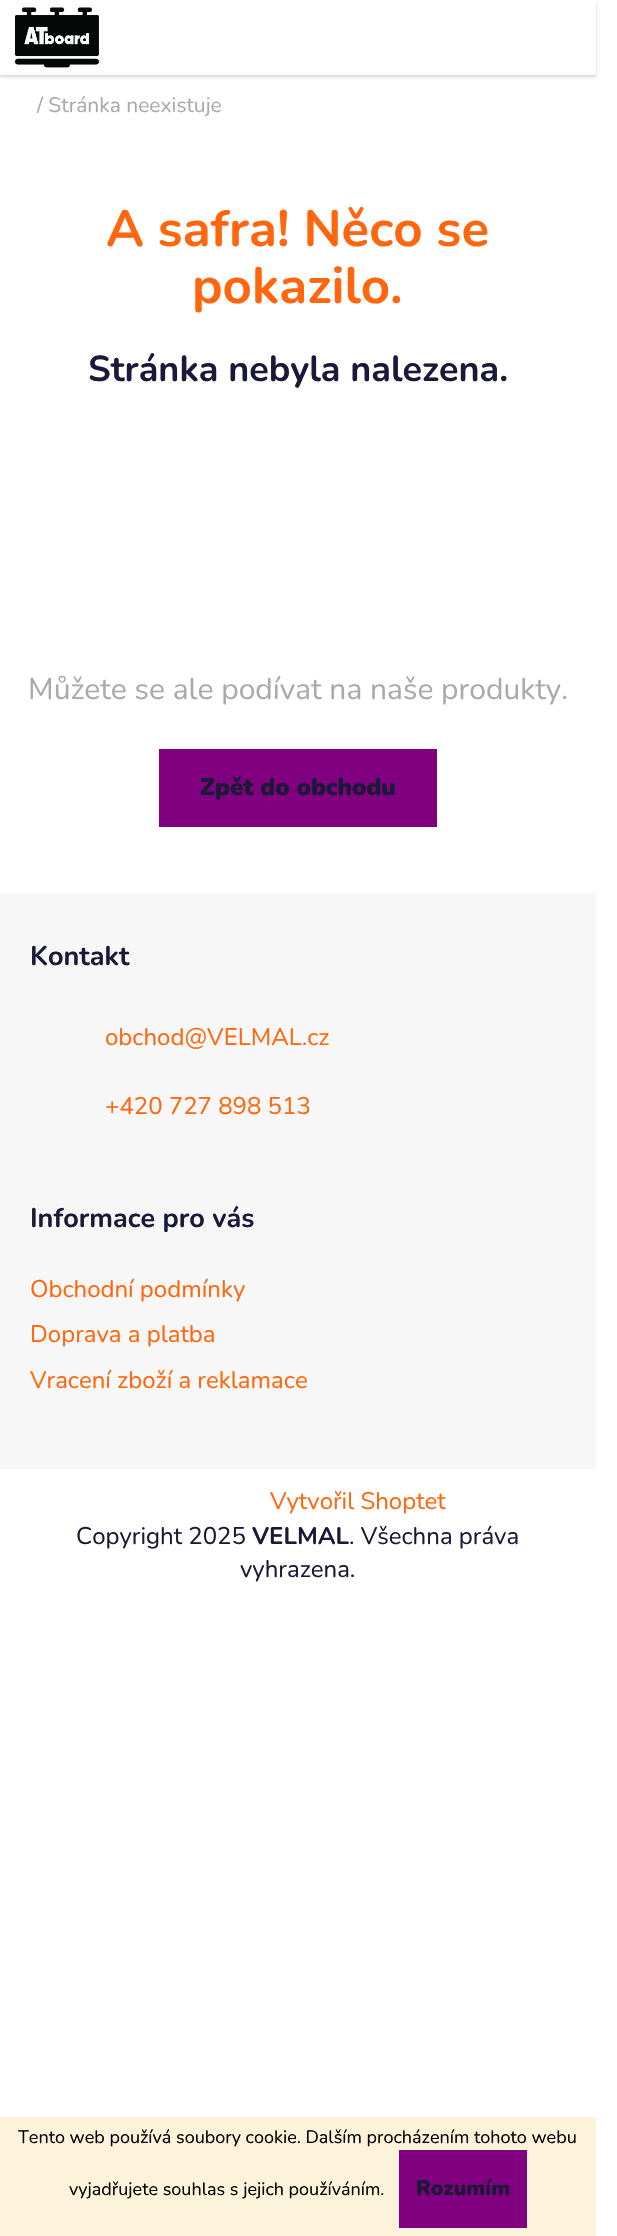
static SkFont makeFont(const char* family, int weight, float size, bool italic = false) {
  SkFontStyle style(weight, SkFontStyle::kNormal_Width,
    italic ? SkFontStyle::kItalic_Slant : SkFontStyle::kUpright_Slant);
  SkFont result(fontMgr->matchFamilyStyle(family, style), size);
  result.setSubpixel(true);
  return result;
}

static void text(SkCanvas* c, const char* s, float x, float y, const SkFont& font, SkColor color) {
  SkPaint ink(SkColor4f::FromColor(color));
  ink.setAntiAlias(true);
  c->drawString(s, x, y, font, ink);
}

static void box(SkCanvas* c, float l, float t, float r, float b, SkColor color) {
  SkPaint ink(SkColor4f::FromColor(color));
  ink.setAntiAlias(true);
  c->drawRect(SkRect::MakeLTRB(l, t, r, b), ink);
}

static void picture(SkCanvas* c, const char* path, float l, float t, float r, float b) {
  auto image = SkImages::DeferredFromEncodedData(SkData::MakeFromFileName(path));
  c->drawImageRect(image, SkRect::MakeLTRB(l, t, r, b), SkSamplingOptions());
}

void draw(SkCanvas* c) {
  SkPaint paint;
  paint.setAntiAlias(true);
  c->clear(0xffffffff);
  paint.setColor(0x29000000);
  paint.setMaskFilter(SkMaskFilter::MakeBlur(kNormal_SkBlurStyle, 1.5f));
  c->drawRect(SkRect::MakeLTRB(0, 2, 596, 77), paint);
  paint.setMaskFilter(nullptr);
  box(c, 0, 0, 596, 75, 0xffffffff);
  picture(c, "img_01.png", 15, 7, 99, 68);
  SkFont face1 = makeFont("Nunito", 400, 21);
  text(c, "/ Stránka neexistuje", 37, 112, face1, 0xffaaaaaa);
  SkFont face2 = makeFont("Nunito", 700, 51);
  text(c, "A safra! Něco se", 106, 246, face2, 0xffff660e);
  text(c, "pokazilo.", 192, 303, face2, 0xffff660e);
  SkFont face3 = makeFont("Nunito", 700, 36);
  text(c, "Stránka nebyla nalezena.", 88, 381, face3, 0xff1a1937);
  SkFont face4 = makeFont("Nunito", 400, 30);
  text(c, "Můžete se ale podívat na naše produkty.", 28, 699, face4, 0xffaaaaaa);
  box(c, 159, 749, 437, 827, 0xff800080);
  SkFont face5 = makeFont("Nunito", 900, 24);
  text(c, "Zpět do obchodu", 200, 795, face5, 0xff1a1937);
  box(c, 0, 893, 596, 1469, 0xfff7f7f7);
  SkFont face6 = makeFont("Nunito", 700, 27);
  text(c, "Kontakt", 30, 965, face6, 0xff1a1937);
  SkFont face7 = makeFont("Nunito", 400, 24);
  text(c, "obchod@VELMAL.cz", 105, 1045, face7, 0xffff660e);
  text(c, "+420 727 898 513", 105, 1114, face7, 0xffff660e);
  text(c, "Informace pro vás", 30, 1227, face6, 0xff1a1937);
  text(c, "Obchodní podmínky", 30, 1297, face7, 0xffff660e);
  text(c, "Doprava a platba", 30, 1342, face7, 0xffff660e);
  text(c, "Vracení zboží a reklamace", 30, 1388, face7, 0xffff660e);
  text(c, "Vytvořil Shoptet", 270, 1509, face7, 0xffff660e);
  text(c, "Copyright 2025", 76, 1544, face7, 0xff1a1937);
  SkFont face8 = makeFont("Nunito", 700, 24);
  text(c, "VELMAL", 252, 1544, face8, 0xff1a1937);
  text(c, ". Všechna práva", 349, 1544, face7, 0xff1a1937);
  text(c, "vyhrazena.", 240, 1577, face7, 0xff1a1937);
  box(c, 0, 2117, 596, 2236, 0xfffdf3da);
  SkFont face9 = makeFont("Nunito", 400, 18);
  text(c, "Tento web používá soubory cookie. Dalším procházením tohoto webu", 18, 2143, face9, 0xff000000);
  text(c, "vyjadřujete souhlas s jejich používáním.", 69, 2195, face9, 0xff000000);
  box(c, 399, 2150, 527, 2228, 0xff800080);
  SkFont face10 = makeFont("Nunito", 900, 21);
  text(c, "Rozumím", 416, 2195, face10, 0xff1a1937);
}
